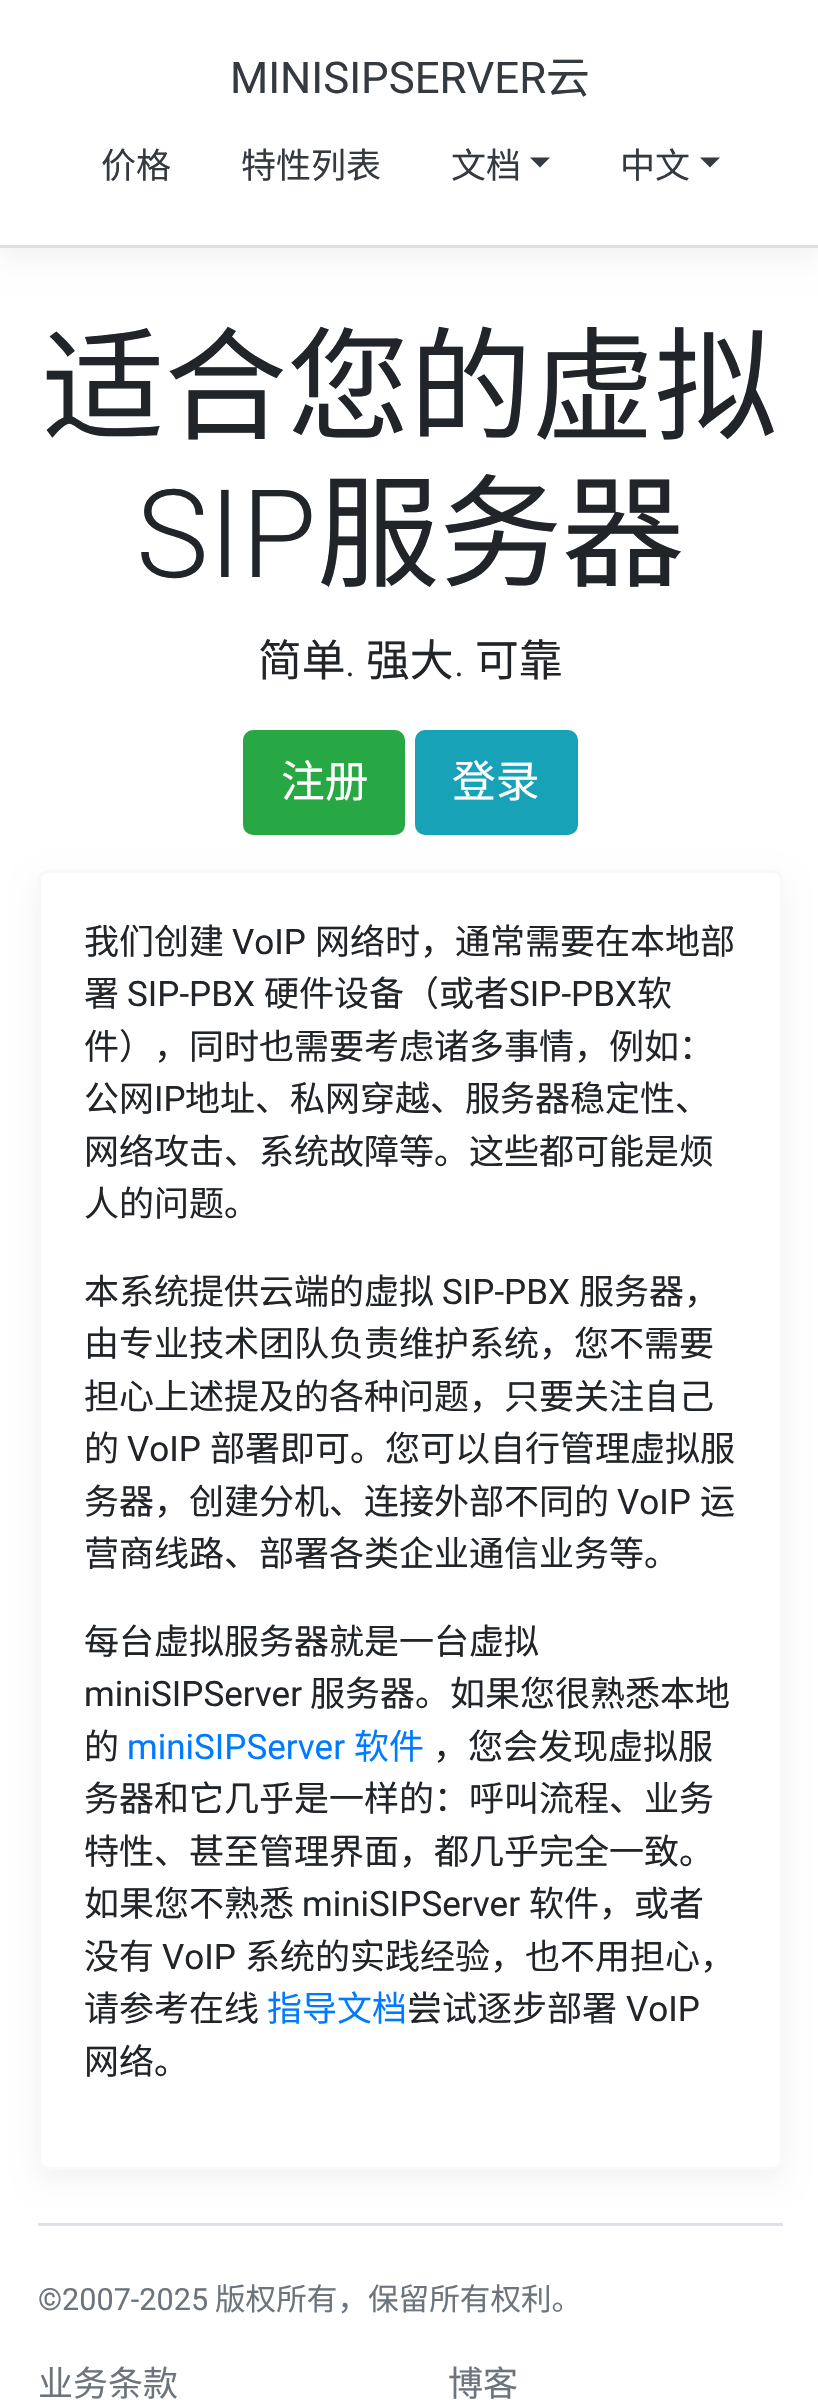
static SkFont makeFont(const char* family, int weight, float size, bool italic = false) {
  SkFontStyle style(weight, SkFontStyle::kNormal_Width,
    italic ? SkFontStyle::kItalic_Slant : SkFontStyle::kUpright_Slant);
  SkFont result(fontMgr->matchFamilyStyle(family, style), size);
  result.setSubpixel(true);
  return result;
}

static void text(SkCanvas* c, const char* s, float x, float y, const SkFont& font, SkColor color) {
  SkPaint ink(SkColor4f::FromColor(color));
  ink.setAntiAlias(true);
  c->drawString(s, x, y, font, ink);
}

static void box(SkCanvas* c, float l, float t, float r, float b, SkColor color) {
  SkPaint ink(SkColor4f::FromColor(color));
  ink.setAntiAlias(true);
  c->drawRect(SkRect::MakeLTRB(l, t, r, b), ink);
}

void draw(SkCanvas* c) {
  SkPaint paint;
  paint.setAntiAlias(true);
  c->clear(0xffffffff);
  paint.setColor(0x0d000000);
  paint.setMaskFilter(SkMaskFilter::MakeBlur(kNormal_SkBlurStyle, 13));
  c->drawRect(SkRect::MakeLTRB(0, 10, 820, 258), paint);
  paint.setMaskFilter(nullptr);
  box(c, 0, 0, 818, 245, 0xffffffff);
  box(c, 0, 245, 818, 248, 0xffdee2e6);
  SkFont face1 = makeFont("Roboto", 400, 43.75f);
  text(c, "MINISIPSERVER", 230, 93, face1, 0xff343a40);
  SkFont face2 = makeFont("Noto Sans CJK SC", 400, 43.75f);
  text(c, "云", 546, 93, face2, 0xff343a40);
  SkFont face3 = makeFont("Noto Sans CJK SC", 400, 35);
  text(c, "价格", 101, 178, face3, 0xff343a40);
  text(c, "特性列表", 241, 178, face3, 0xff343a40);
  text(c, "文档", 451, 178, face3, 0xff343a40);
  paint.setColor(0xff343a40);
  c->drawPath(SkPathBuilder().moveTo(530, 157.5f).lineTo(550, 157.5f).lineTo(540, 167.5f).close().detach(), paint);
  text(c, "中文", 620, 178, face3, 0xff343a40);
  c->drawPath(SkPathBuilder().moveTo(700, 157.5f).lineTo(720, 157.5f).lineTo(710, 167.5f).close().detach(), paint);
  SkFont face4 = makeFont("Noto Sans CJK SC", 400, 122.5f);
  text(c, "适合您的虚拟", 42, 430, face4, 0xff212529);
  SkFont face5 = makeFont("Roboto", 300, 122.5f);
  text(c, "SIP", 136, 577, face5, 0xff212529);
  text(c, "服务器", 317, 577, face4, 0xff212529);
  text(c, "简单", 258, 676, face2, 0xff212529);
  SkFont face6 = makeFont("Roboto", 300, 43.75f);
  text(c, ".", 345, 676, face6, 0xff212529);
  text(c, "强大", 366, 676, face2, 0xff212529);
  text(c, ".", 454, 676, face6, 0xff212529);
  text(c, "可靠", 475, 676, face2, 0xff212529);
  paint.setColor(0xff28a745);
  c->drawRoundRect(SkRect::MakeLTRB(244.5f, 731.5f, 403.5f, 833.5f), 8.5f, 8.5f, paint);
  paint.setStyle(SkPaint::kStroke_Style);
  paint.setStrokeWidth(3);
  c->drawRoundRect(SkRect::MakeLTRB(244.5f, 731.5f, 403.5f, 833.5f), 8.5f, 8.5f, paint);
  text(c, "注册", 281, 797, face2, 0xffffffff);
  paint.setStyle(SkPaint::kFill_Style);
  paint.setColor(0xff17a2b8);
  c->drawRoundRect(SkRect::MakeLTRB(416.5f, 731.5f, 576.5f, 833.5f), 8.5f, 8.5f, paint);
  paint.setStyle(SkPaint::kStroke_Style);
  c->drawRoundRect(SkRect::MakeLTRB(416.5f, 731.5f, 576.5f, 833.5f), 8.5f, 8.5f, paint);
  text(c, "登录", 452, 797, face2, 0xffffffff);
  paint.setStyle(SkPaint::kFill_Style);
  paint.setColor(0x0d000000);
  paint.setMaskFilter(SkMaskFilter::MakeBlur(kNormal_SkBlurStyle, 13));
  c->drawRoundRect(SkRect::MakeLTRB(38, 880, 783, 2180), 10, 10, paint);
  paint.setMaskFilter(nullptr);
  paint.setColor(0xffffffff);
  c->drawRoundRect(SkRect::MakeLTRB(39.5f, 871.5f, 781.5f, 2168.5f), 8.5f, 8.5f, paint);
  paint.setStyle(SkPaint::kStroke_Style);
  paint.setColor(0xfff8f9fa);
  c->drawRoundRect(SkRect::MakeLTRB(39.5f, 871.5f, 781.5f, 2168.5f), 8.5f, 8.5f, paint);
  text(c, "我们创建", 84, 954, face3, 0xff212529);
  SkFont face7 = makeFont("Roboto", 400, 35);
  text(c, "VoIP", 232, 954, face7, 0xff212529);
  text(c, "网络时，通常需要在本地部", 315, 954, face3, 0xff212529);
  text(c, "署", 84, 1006, face3, 0xff212529);
  text(c, "SIP-PBX", 127, 1006, face7, 0xff212529);
  text(c, "硬件设备（或者", 264, 1006, face3, 0xff212529);
  text(c, "SIP-PBX", 509, 1006, face7, 0xff212529);
  text(c, "软", 637, 1006, face3, 0xff212529);
  text(c, "件），同时也需要考虑诸多事情，例如：", 84, 1059, face3, 0xff212529);
  text(c, "公网", 84, 1111, face3, 0xff212529);
  text(c, "IP", 154, 1111, face7, 0xff212529);
  text(c, "地址、私网穿越、服务器稳定性、", 185, 1111, face3, 0xff212529);
  text(c, "网络攻击、系统故障等。这些都可能是烦", 84, 1164, face3, 0xff212529);
  text(c, "人的问题。", 84, 1216, face3, 0xff212529);
  text(c, "本系统提供云端的虚拟", 84, 1304, face3, 0xff212529);
  text(c, "SIP-PBX", 442, 1304, face7, 0xff212529);
  text(c, "服务器，", 579, 1304, face3, 0xff212529);
  text(c, "由专业技术团队负责维护系统，您不需要", 84, 1356, face3, 0xff212529);
  text(c, "担心上述提及的各种问题，只要关注自己", 84, 1409, face3, 0xff212529);
  text(c, "的", 84, 1461, face3, 0xff212529);
  text(c, "VoIP", 127, 1461, face7, 0xff212529);
  text(c, "部署即可。您可以自行管理虚拟服", 210, 1461, face3, 0xff212529);
  text(c, "务器，创建分机、连接外部不同的", 84, 1514, face3, 0xff212529);
  text(c, "VoIP", 617, 1514, face7, 0xff212529);
  text(c, "运", 700, 1514, face3, 0xff212529);
  text(c, "营商线路、部署各类企业通信业务等。", 84, 1566, face3, 0xff212529);
  text(c, "每台虚拟服务器就是一台虚拟", 84, 1654, face3, 0xff212529);
  text(c, "miniSIPServer", 84, 1706, face7, 0xff212529);
  text(c, "服务器。如果您很熟悉本地", 310, 1706, face3, 0xff212529);
  text(c, "的", 84, 1759, face3, 0xff212529);
  text(c, "miniSIPServer", 127, 1759, face7, 0xff007bff);
  text(c, "软件", 354, 1759, face3, 0xff007bff);
  text(c, "，您会发现虚拟服", 433, 1759, face3, 0xff212529);
  text(c, "务器和它几乎是一样的：呼叫流程、业务", 84, 1811, face3, 0xff212529);
  text(c, "特性、甚至管理界面，都几乎完全一致。", 84, 1864, face3, 0xff212529);
  text(c, "如果您不熟悉", 84, 1916, face3, 0xff212529);
  text(c, "miniSIPServer", 302, 1916, face7, 0xff212529);
  text(c, "软件，或者", 529, 1916, face3, 0xff212529);
  text(c, "没有", 84, 1969, face3, 0xff212529);
  text(c, "VoIP", 162, 1969, face7, 0xff212529);
  text(c, "系统的实践经验，也不用担心，", 245, 1969, face3, 0xff212529);
  text(c, "请参考在线", 84, 2021, face3, 0xff212529);
  text(c, "指导文档", 267, 2021, face3, 0xff007bff);
  text(c, "尝试逐步部署", 407, 2021, face3, 0xff212529);
  text(c, "VoIP", 626, 2021, face7, 0xff212529);
  text(c, "网络。", 84, 2074, face3, 0xff212529);
  box(c, 38, 2223, 783, 2226, 0xffdee2e6);
  SkFont face8 = makeFont("Roboto", 400, 30.6f);
  text(c, "©2007-2025", 38, 2310, face8, 0xff6c757d);
  SkFont face9 = makeFont("Noto Sans CJK SC", 400, 30.6f);
  text(c, "版权所有，保留所有权利。", 215, 2310, face9, 0xff6c757d);
  text(c, "业务条款", 38, 2396, face3, 0xff6c757d);
  text(c, "博客", 448, 2396, face3, 0xff6c757d);
}
